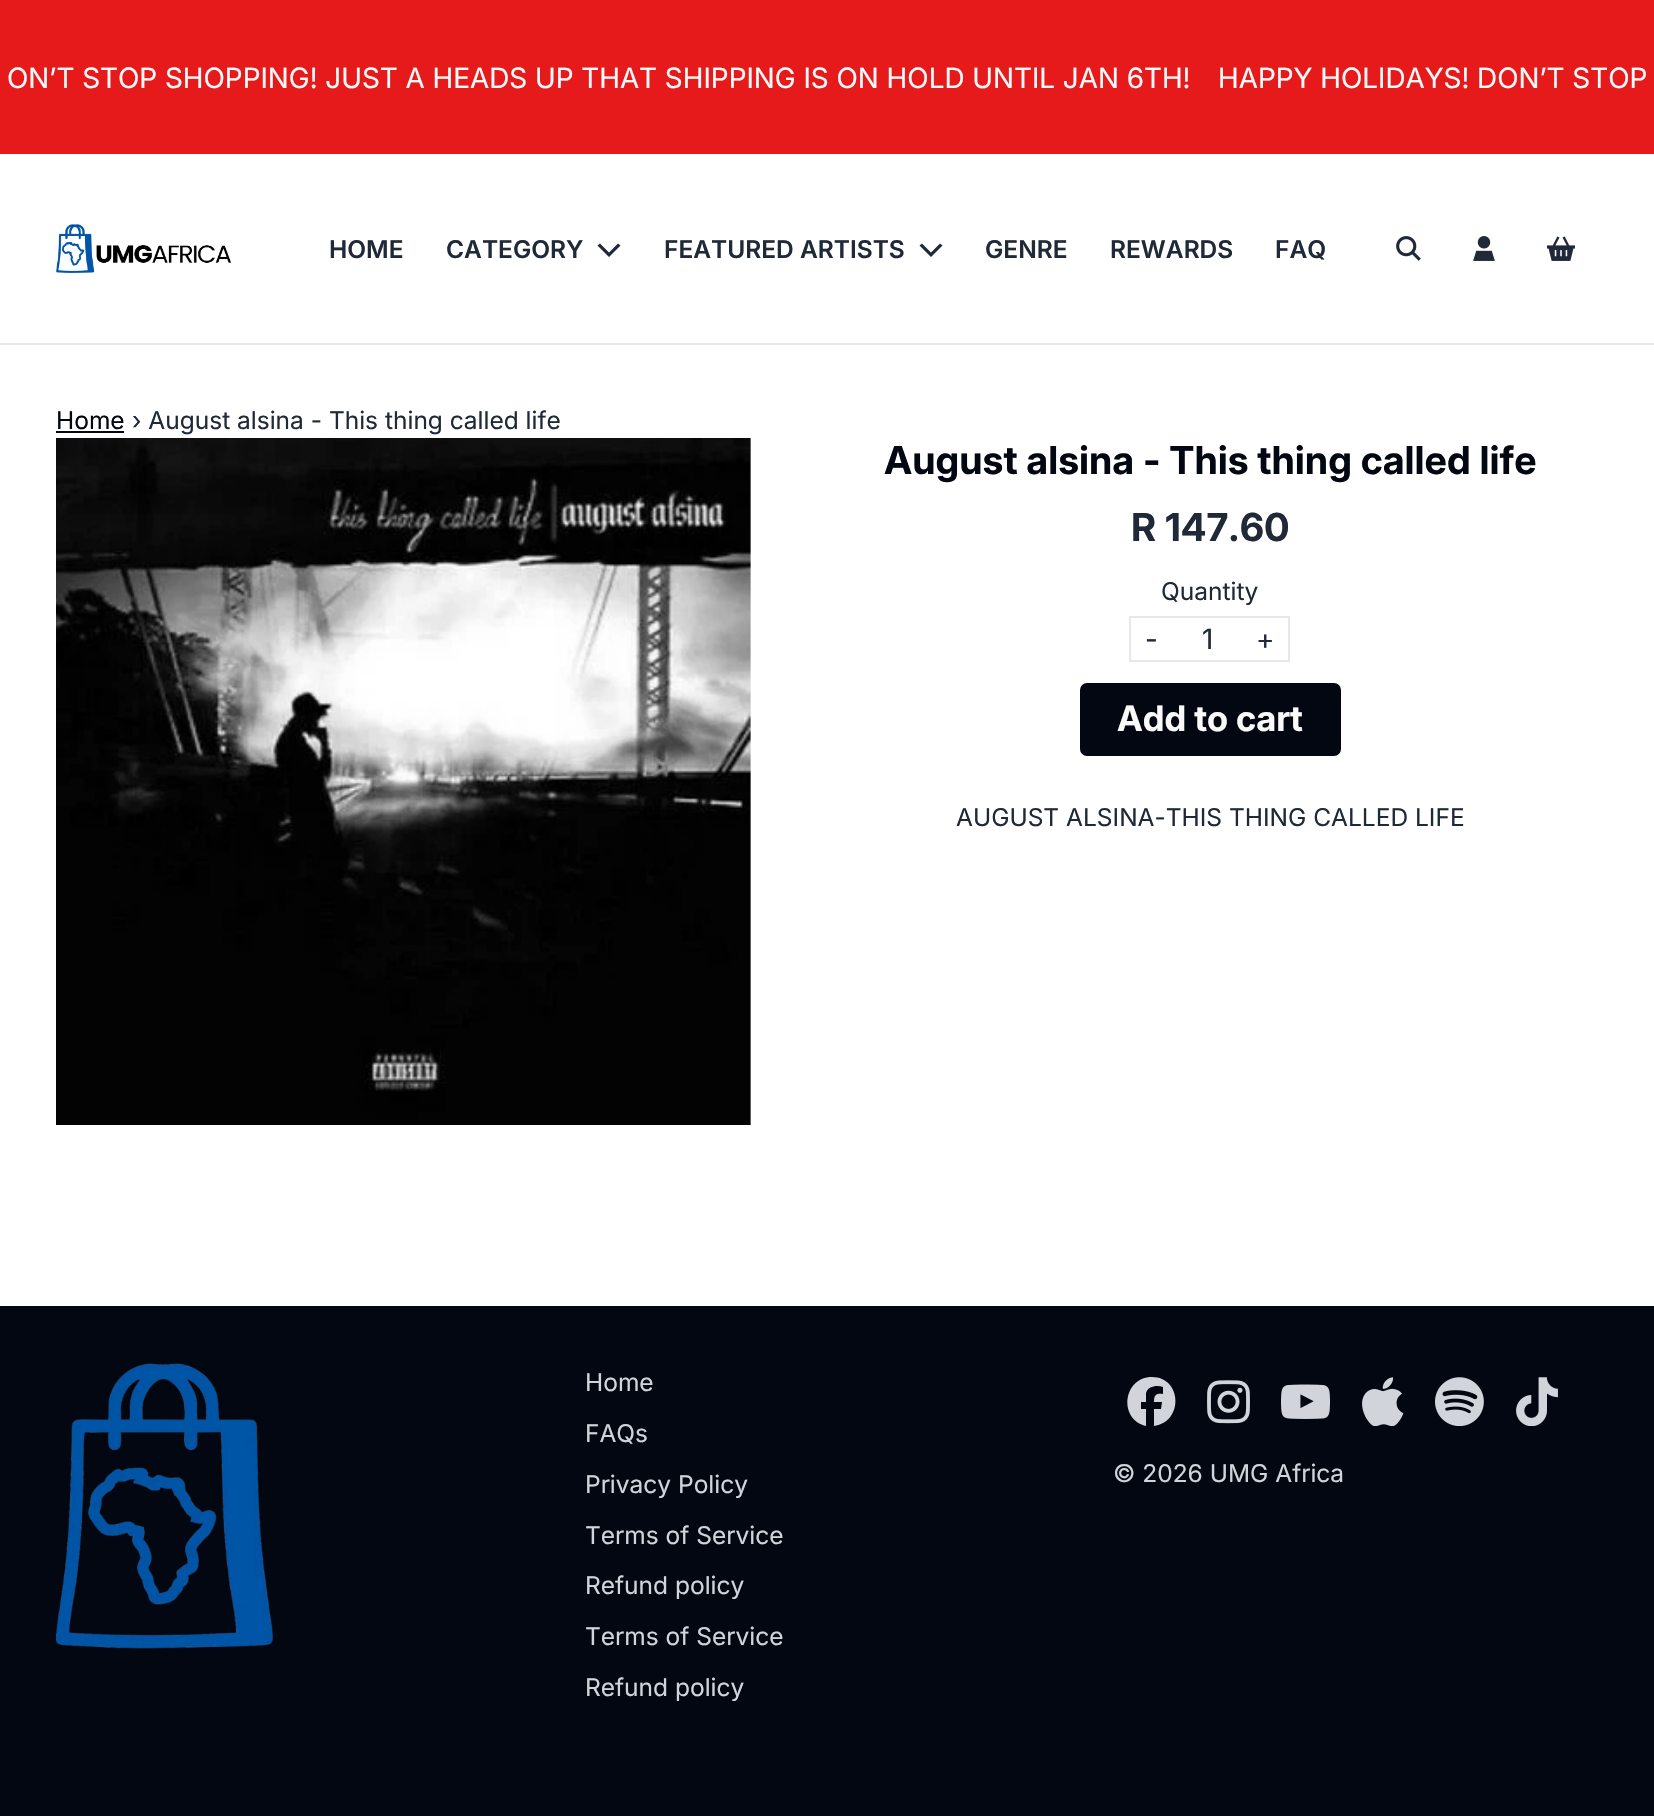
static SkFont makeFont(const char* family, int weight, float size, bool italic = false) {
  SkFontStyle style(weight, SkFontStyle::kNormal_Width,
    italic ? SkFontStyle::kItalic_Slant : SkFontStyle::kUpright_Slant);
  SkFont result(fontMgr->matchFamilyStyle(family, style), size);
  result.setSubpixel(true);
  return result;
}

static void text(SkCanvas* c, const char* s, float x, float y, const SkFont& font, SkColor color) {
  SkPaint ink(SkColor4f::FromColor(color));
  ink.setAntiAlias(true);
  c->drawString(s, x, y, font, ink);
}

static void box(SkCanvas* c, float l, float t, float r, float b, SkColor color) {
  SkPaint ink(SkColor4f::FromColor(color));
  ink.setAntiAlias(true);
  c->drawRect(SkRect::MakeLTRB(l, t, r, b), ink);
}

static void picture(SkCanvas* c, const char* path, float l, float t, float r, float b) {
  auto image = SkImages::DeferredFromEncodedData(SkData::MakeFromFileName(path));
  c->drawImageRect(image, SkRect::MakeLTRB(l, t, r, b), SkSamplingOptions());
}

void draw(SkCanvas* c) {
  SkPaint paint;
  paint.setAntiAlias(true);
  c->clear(0xffffffff);
  box(c, 0, 0, 1654, 154, 0xffe61a1a);
  SkFont face1 = makeFont("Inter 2", 400, 28);
  text(c, "ON’T STOP SHOPPING! JUST A HEADS UP THAT SHIPPING IS ON HOLD UNTIL JAN 6TH!", 7, 88, face1, 0xfffafafa);
  text(c, "HAPPY HOLIDAYS! DON’T STOP", 1218, 88, face1, 0xfffafafa);
  box(c, 0, 343, 1654, 345, 0xffe5e7eb);
  picture(c, "img_01.png", 56, 224, 231, 273);
  SkFont face2 = makeFont("Inter", 600, 24.5f);
  text(c, "HOME", 329, 258, face2, 0xff1f2937);
  text(c, "CATEGORY", 446, 258, face2, 0xff1f2937);
  paint.setColor(0xff1f2937);
  c->drawPath(SkPathBuilder().moveTo(609, 257).lineTo(620.5f, 245.5f).lineTo(618, 243.5f).lineTo(609, 252.5f).lineTo(600, 243.5f).lineTo(597.5f, 245.5f).close().detach(), paint);
  text(c, "FEATURED ARTISTS", 664, 258, face2, 0xff1f2937);
  c->drawPath(SkPathBuilder().moveTo(931, 257).lineTo(942.5f, 245.5f).lineTo(940, 243.5f).lineTo(931, 252.5f).lineTo(922, 243.5f).lineTo(919.5f, 245.5f).close().detach(), paint);
  text(c, "GENRE", 985, 258, face2, 0xff1f2937);
  text(c, "REWARDS", 1110, 258, face2, 0xff1f2937);
  text(c, "FAQ", 1275, 258, face2, 0xff1f2937);
  picture(c, "img_02.png", 1396, 236, 1421, 261);
  picture(c, "img_03.png", 1473, 236, 1495, 261);
  picture(c, "img_04.png", 1547, 236, 1575, 261);
  SkFont face3 = makeFont("Inter", 400, 24.5f);
  text(c, "Home", 56, 429, face3, 0xff030711);
  box(c, 56, 431, 124, 433, 0xff030711);
  text(c, "› August alsina - This thing called life", 132, 429, face3, 0xff1f2937);
  picture(c, "img_05.png", 56, 438, 751, 1125);
  SkFont face4 = makeFont("Inter", 700, 38.5f);
  text(c, "August alsina - This thing called life", 884, 474, face4, 0xff030711);
  text(c, "R 147.60", 1131, 541, face4, 0xff1f2937);
  text(c, "Quantity", 1161, 600, face3, 0xff1f2937);
  paint.setStyle(SkPaint::kStroke_Style);
  paint.setStrokeWidth(2);
  paint.setColor(0xffe5e7eb);
  c->drawRect(SkRect::MakeLTRB(1130, 617, 1289, 661), paint);
  text(c, "-", 1145, 649, face1, 0xff1f2937);
  text(c, "1", 1202, 649, face1, 0xff1f2937);
  text(c, "+", 1256, 649, face1, 0xff1f2937);
  paint.setStyle(SkPaint::kFill_Style);
  paint.setColor(0xff030711);
  c->drawRoundRect(SkRect::MakeLTRB(1081, 684, 1340, 755), 6, 6, paint);
  paint.setStyle(SkPaint::kStroke_Style);
  c->drawRoundRect(SkRect::MakeLTRB(1081, 684, 1340, 755), 6, 6, paint);
  SkFont face5 = makeFont("Inter 2", 700, 35);
  text(c, "Add to cart", 1117, 731, face5, 0xfffafafa);
  text(c, "AUGUST ALSINA-THIS THING CALLED LIFE", 956, 826, face3, 0xff1f2937);
  box(c, 0, 1306, 1654, 1816, 0xff030711);
  picture(c, "img_06.png", 56, 1363, 273, 1649);
  text(c, "Home", 585, 1391, face3, 0xffd1d5db);
  text(c, "FAQs", 585, 1442, face3, 0xffd1d5db);
  text(c, "Privacy Policy", 585, 1493, face3, 0xffd1d5db);
  text(c, "Terms of Service", 585, 1544, face3, 0xffd1d5db);
  text(c, "Refund policy", 585, 1594, face3, 0xffd1d5db);
  text(c, "Terms of Service", 585, 1645, face3, 0xffd1d5db);
  text(c, "Refund policy", 585, 1696, face3, 0xffd1d5db);
  paint.setStyle(SkPaint::kFill_Style);
  paint.setColor(0xffd1d5db);
  c->drawPath(SkPathBuilder().moveTo(1152, 1377).cubicTo(1123, 1377, 1118, 1419, 1146, 1426).lineTo(1146, 1409).lineTo(1141, 1409).lineTo(1141, 1402).lineTo(1146, 1402).lineTo(1146, 1393).cubicTo(1148, 1386, 1157, 1385, 1163, 1387).lineTo(1163, 1394).cubicTo(1156, 1393, 1154, 1395, 1154, 1402).lineTo(1162, 1402).lineTo(1161, 1409).lineTo(1154, 1409).lineTo(1154, 1426).cubicTo(1184, 1422, 1182, 1377, 1152, 1377).close().detach(), paint);
  picture(c, "img_07.png", 1207, 1380, 1250, 1424);
  picture(c, "img_08.png", 1281, 1384, 1330, 1419);
  picture(c, "img_09.png", 1362, 1377, 1404, 1426);
  picture(c, "img_10.png", 1435, 1377, 1484, 1426);
  picture(c, "img_11.png", 1516, 1377, 1558, 1426);
  text(c, "© 2026 UMG Africa", 1113, 1482, face3, 0xffd1d5db);
}
